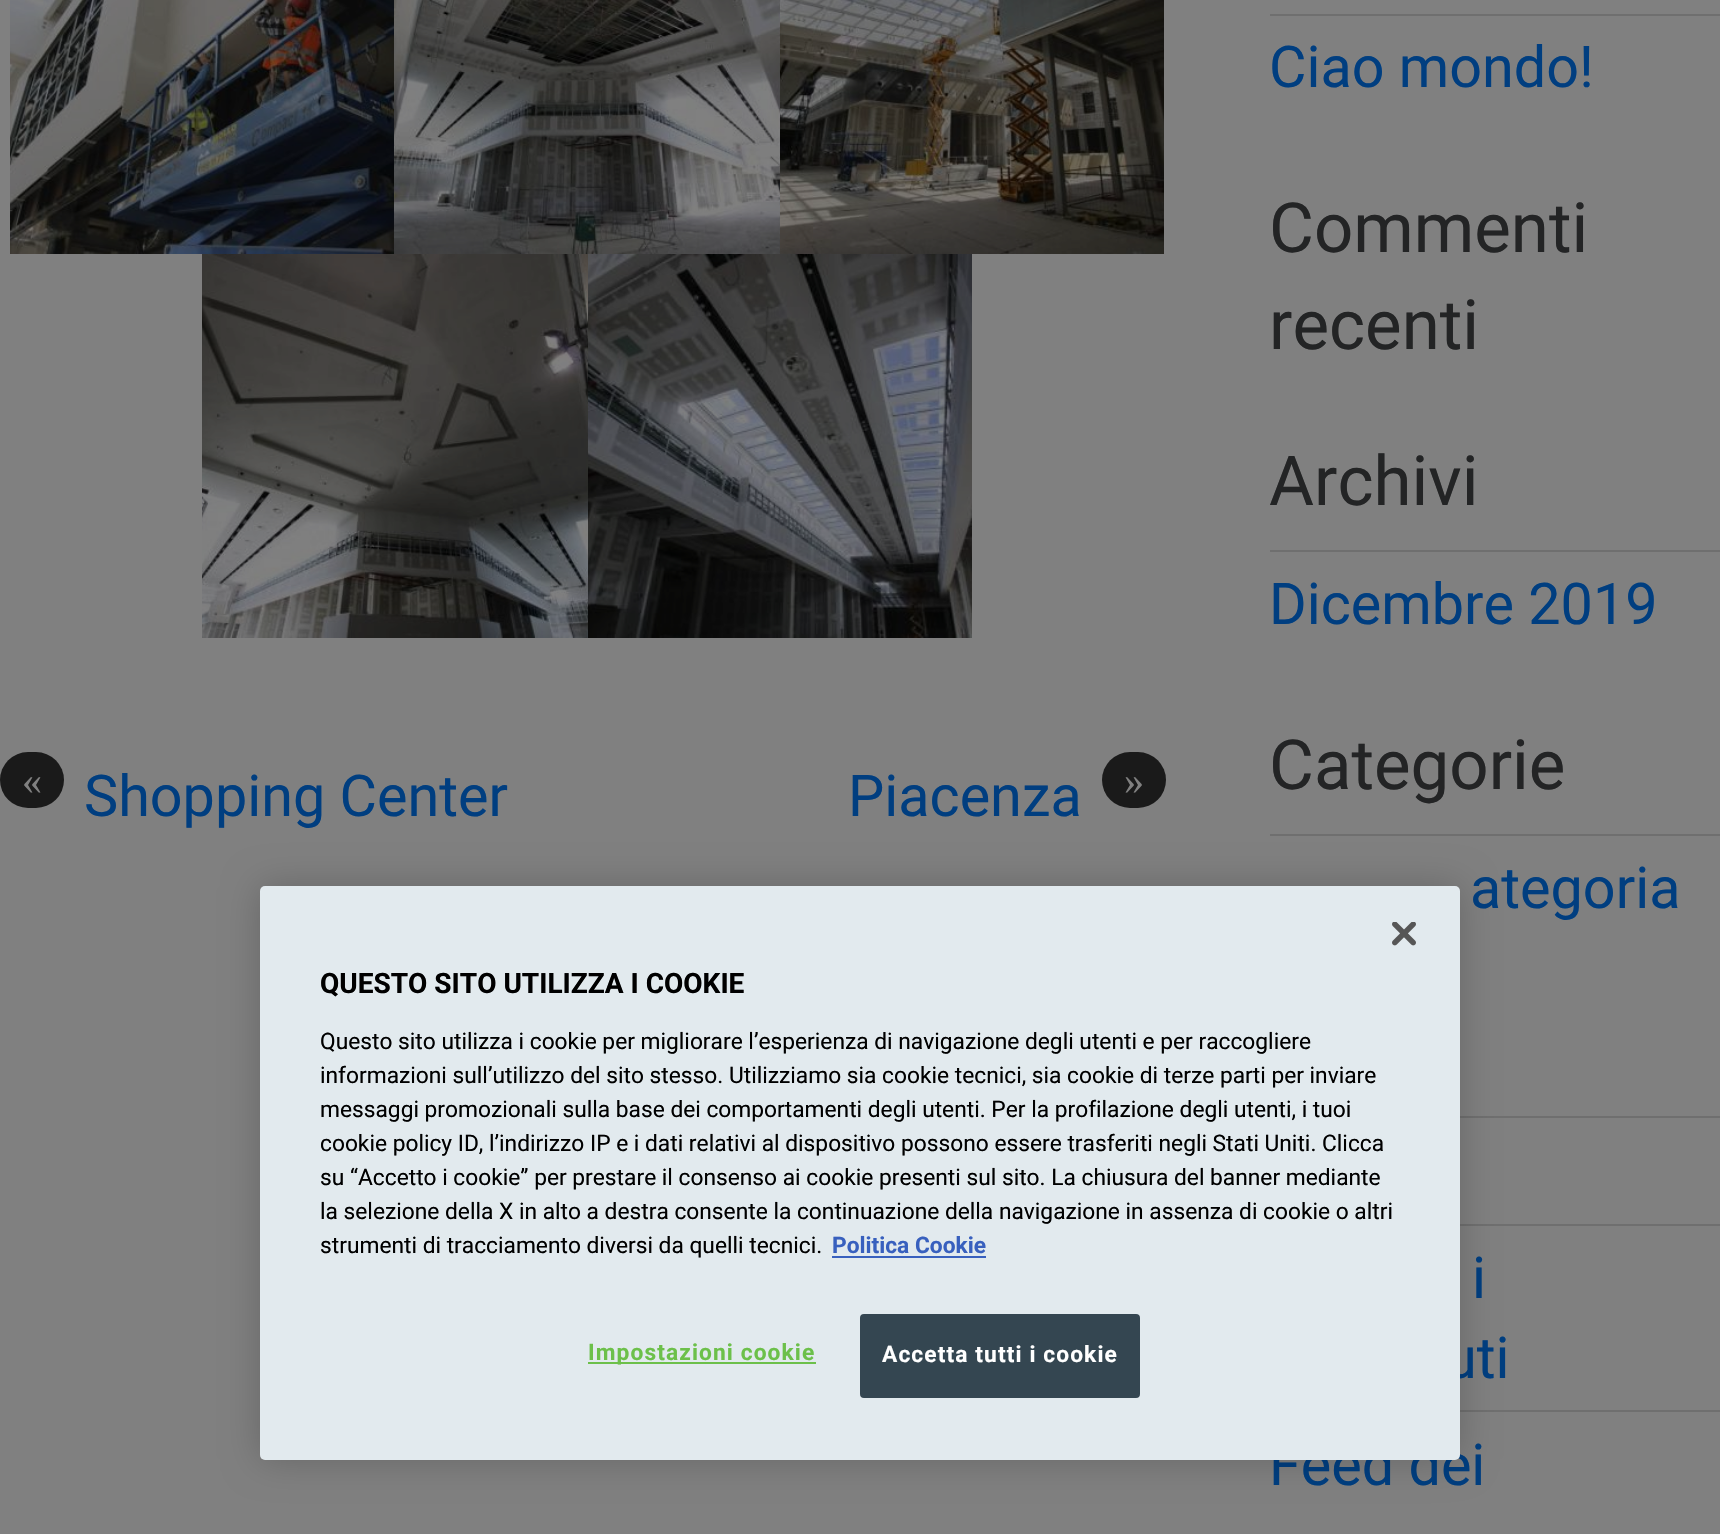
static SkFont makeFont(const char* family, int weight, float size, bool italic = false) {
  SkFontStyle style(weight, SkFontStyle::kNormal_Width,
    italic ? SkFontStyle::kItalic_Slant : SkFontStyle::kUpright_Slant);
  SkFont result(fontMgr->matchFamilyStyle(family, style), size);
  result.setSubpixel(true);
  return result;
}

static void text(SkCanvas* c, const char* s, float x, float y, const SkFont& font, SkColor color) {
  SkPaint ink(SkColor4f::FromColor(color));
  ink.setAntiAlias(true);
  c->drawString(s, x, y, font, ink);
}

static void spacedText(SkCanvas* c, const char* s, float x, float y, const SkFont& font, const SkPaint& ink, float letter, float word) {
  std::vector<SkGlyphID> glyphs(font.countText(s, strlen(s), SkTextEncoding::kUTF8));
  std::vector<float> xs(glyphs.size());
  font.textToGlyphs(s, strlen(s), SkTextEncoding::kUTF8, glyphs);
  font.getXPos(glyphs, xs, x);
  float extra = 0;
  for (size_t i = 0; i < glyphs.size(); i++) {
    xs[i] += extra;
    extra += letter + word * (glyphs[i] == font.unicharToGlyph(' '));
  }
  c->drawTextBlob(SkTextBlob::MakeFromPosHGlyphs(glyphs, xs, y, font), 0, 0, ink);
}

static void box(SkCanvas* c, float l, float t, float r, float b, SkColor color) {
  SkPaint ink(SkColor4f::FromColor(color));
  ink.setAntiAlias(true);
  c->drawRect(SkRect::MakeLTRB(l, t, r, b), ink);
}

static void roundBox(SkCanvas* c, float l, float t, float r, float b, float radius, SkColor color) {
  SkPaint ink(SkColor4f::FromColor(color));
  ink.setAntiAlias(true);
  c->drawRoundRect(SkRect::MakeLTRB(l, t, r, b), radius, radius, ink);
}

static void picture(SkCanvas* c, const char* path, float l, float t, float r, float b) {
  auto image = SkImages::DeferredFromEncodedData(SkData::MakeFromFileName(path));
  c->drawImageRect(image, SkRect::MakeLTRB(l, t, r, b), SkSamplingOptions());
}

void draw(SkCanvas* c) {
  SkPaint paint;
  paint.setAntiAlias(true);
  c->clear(0xff808080);
  picture(c, "img_01.png", 10, 0, 394, 254);
  picture(c, "img_02.png", 394, 0, 780, 254);
  picture(c, "img_03.png", 780, 0, 1164, 254);
  picture(c, "img_04.png", 202, 254, 588, 638);
  picture(c, "img_05.png", 588, 254, 972, 638);
  roundBox(c, 0, 752, 64, 808, 28, 0xff1a1a1a);
  SkFont face1 = makeFont("Liberation Serif", 400, 40);
  text(c, "«", 22, 794, face1, 0xff808080);
  SkFont face2 = makeFont("Roboto", 400, 57.5f);
  text(c, "Shopping Center", 84, 816, face2, 0xff003e80);
  text(c, "Piacenza", 848, 816, face2, 0xff003e80);
  roundBox(c, 1102, 752, 1166, 808, 28, 0xff1a1a1a);
  text(c, "»", 1124, 794, face1, 0xff808080);
  box(c, 1270, 14, 1720, 16, 0xff6f6f6f);
  text(c, "Ciao mondo!", 1269, 87, face2, 0xff003e80);
  SkFont face3 = makeFont("Roboto", 400, 69);
  text(c, "Commenti", 1269, 252, face3, 0xff232425);
  text(c, "recenti", 1269, 349, face3, 0xff232425);
  text(c, "Archivi", 1269, 505, face3, 0xff232425);
  box(c, 1270, 550, 1720, 552, 0xff6f6f6f);
  text(c, "Dicembre 2019", 1269, 624, face2, 0xff003e80);
  text(c, "Categorie", 1269, 789, face3, 0xff232425);
  box(c, 1270, 834, 1720, 836, 0xff6f6f6f);
  text(c, "ategoria", 1470, 908, face2, 0xff003e80);
  box(c, 1460, 1116, 1720, 1118, 0xff6f6f6f);
  box(c, 1460, 1224, 1720, 1226, 0xff6f6f6f);
  text(c, "i", 1472, 1298, face2, 0xff003e80);
  text(c, "uti", 1445, 1378, face2, 0xff003e80);
  box(c, 1460, 1410, 1720, 1412, 0xff6f6f6f);
  text(c, "Feed dei", 1269, 1485, face2, 0xff003e80);
  paint.setColor(0x33000000);
  paint.setMaskFilter(SkMaskFilter::MakeBlur(kNormal_SkBlurStyle, 18));
  c->drawRoundRect(SkRect::MakeLTRB(260, 886, 1460, 1460), 5, 5, paint);
  paint.setMaskFilter(nullptr);
  roundBox(c, 260, 886, 1460, 1460, 5, 0xffe2eaee);
  picture(c, "img_06.png", 1392, 922, 1416, 946);
  SkFont face4 = makeFont("Roboto", 700, 28);
  text(c, "QUESTO SITO UTILIZZA I COOKIE", 320, 993, face4, 0xff000000);
  SkFont face5 = makeFont("Roboto", 400, 22.75f);
  text(c, "Questo sito utilizza i cookie per migliorare l’esperienza di navigazione degli utenti e per raccogliere", 320, 1049, face5, 0xff000000);
  text(c, "informazioni sull’utilizzo del sito stesso. Utilizziamo sia cookie tecnici, sia cookie di terze parti per inviare", 320, 1083, face5, 0xff000000);
  text(c, "messaggi promozionali sulla base dei comportamenti degli utenti. Per la profilazione degli utenti, i tuoi", 320, 1117, face5, 0xff000000);
  text(c, "cookie policy ID, l’indirizzo IP e i dati relativi al dispositivo possono essere trasferiti negli Stati Uniti. Clicca", 320, 1151, face5, 0xff000000);
  text(c, "su “Accetto i cookie” per prestare il consenso ai cookie presenti sul sito. La chiusura del banner mediante", 320, 1185, face5, 0xff000000);
  text(c, "la selezione della X in alto a destra consente la continuazione della navigazione in assenza di cookie o altri", 320, 1219, face5, 0xff000000);
  text(c, "strumenti di tracciamento diversi da quelli tecnici.", 320, 1253, face5, 0xff000000);
  SkFont face6 = makeFont("Roboto", 700, 22.75f);
  text(c, "Politica Cookie", 832, 1253, face6, 0xff3860be);
  box(c, 832, 1256, 986, 1258, 0xff3860be);
  box(c, 588, 1362, 816, 1364, 0xff6cc04a);
  paint.setColor(0xff6cc04a);
  spacedText(c, "Impostazioni cookie", 588, 1360, face6, paint, 1.1f, 0);
  paint.setColor(0xff344651);
  c->drawRoundRect(SkRect::MakeLTRB(861, 1315, 1139, 1397), 3, 3, paint);
  paint.setStyle(SkPaint::kStroke_Style);
  paint.setStrokeWidth(2);
  c->drawRoundRect(SkRect::MakeLTRB(861, 1315, 1139, 1397), 3, 3, paint);
  paint.setStyle(SkPaint::kFill_Style);
  paint.setColor(0xffffffff);
  spacedText(c, "Accetta tutti i cookie", 882, 1362, face6, paint, 1.1f, 0);
}
